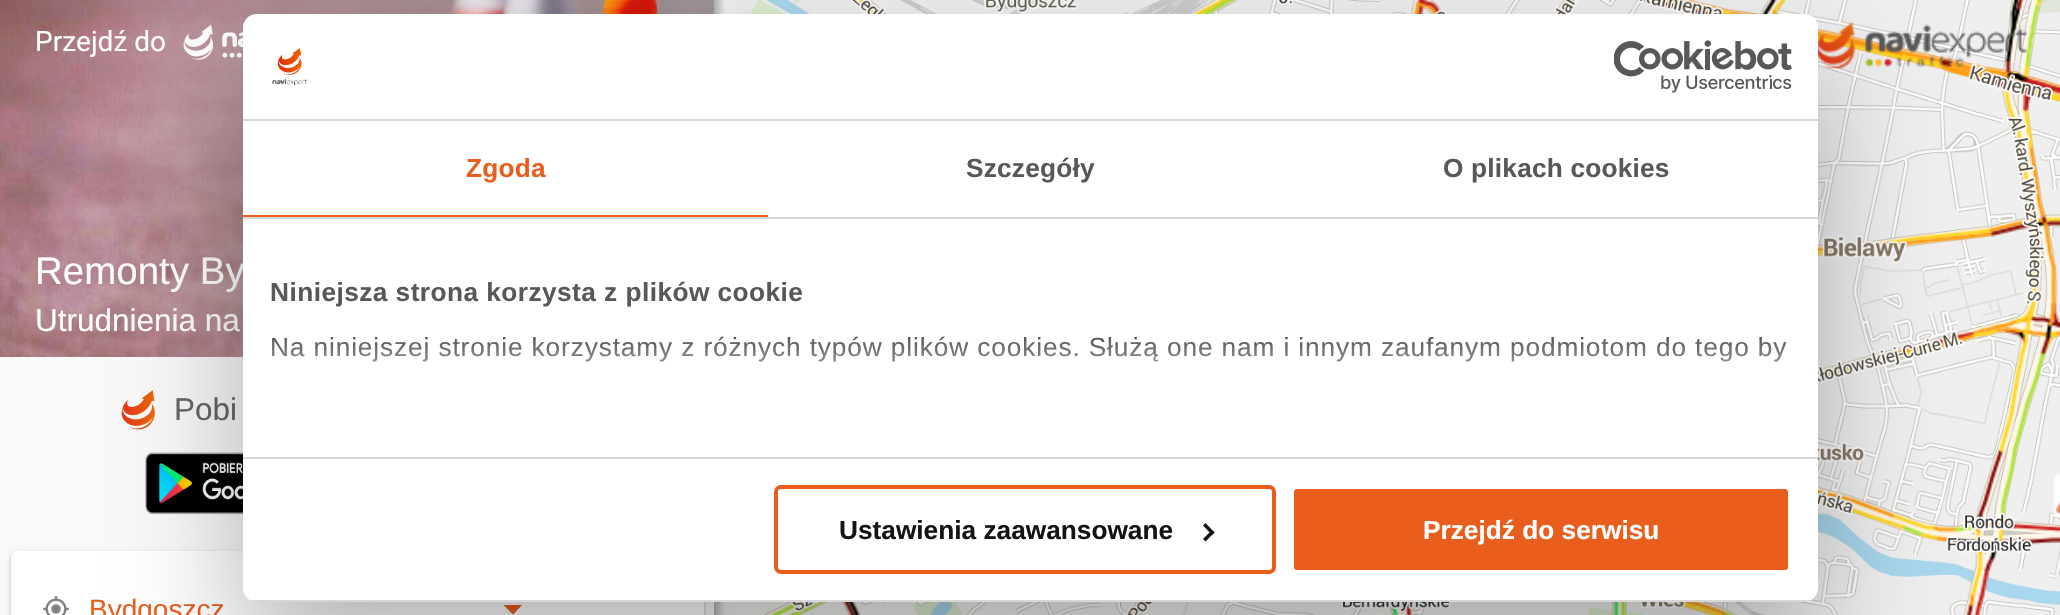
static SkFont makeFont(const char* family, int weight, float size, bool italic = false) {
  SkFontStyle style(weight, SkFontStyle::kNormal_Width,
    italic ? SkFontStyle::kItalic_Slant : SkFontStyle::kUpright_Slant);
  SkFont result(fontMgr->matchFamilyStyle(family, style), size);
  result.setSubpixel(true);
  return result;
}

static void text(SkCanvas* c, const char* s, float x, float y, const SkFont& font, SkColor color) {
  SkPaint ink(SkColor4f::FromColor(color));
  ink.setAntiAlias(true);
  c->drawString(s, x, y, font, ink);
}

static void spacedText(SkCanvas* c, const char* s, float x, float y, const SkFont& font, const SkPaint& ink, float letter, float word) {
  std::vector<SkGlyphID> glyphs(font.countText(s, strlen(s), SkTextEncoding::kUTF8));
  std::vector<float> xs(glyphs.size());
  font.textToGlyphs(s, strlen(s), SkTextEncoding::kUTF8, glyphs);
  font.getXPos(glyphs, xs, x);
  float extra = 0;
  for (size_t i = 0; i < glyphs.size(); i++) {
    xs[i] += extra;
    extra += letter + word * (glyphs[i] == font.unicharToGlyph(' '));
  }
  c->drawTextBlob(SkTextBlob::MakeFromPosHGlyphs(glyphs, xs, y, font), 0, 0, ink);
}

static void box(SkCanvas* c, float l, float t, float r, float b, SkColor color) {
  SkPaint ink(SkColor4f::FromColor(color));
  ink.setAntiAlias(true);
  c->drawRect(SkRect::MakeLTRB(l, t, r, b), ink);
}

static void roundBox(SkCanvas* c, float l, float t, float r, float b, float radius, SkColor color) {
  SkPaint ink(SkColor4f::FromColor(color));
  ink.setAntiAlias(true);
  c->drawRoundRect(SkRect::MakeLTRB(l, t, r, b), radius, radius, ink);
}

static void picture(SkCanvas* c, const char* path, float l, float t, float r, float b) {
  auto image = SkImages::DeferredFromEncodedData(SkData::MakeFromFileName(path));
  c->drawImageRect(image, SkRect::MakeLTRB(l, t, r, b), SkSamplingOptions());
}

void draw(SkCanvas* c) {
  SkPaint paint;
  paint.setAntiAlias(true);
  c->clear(0xffffffff);
  box(c, 0, 357, 714, 615, 0xfff9f9f9);
  picture(c, "img_01.png", 0, 0, 714, 357);
  SkFont face1 = makeFont("Roboto", 400, 28);
  text(c, "Przejdź do", 35, 51, face1, 0xffffffff);
  picture(c, "img_02.png", 183, 24, 243, 60);
  SkFont face2 = makeFont("Liberation Sans", 400, 38.5f);
  text(c, "Remonty By", 35, 284, face2, 0xffffffff);
  SkFont face3 = makeFont("Liberation Sans", 400, 31.5f);
  text(c, "Utrudnienia na", 35, 331, face3, 0xffffffff);
  picture(c, "img_06.png", 714, 0, 737, 14);
  picture(c, "img_11.png", 714, 602, 737, 615);
  {
    const SkColor colors[] = {0xffb3b3b3, 0x00b3b3b3};
    const float stops[] = {0, 1};
    const SkPoint ends[] = {{714, 308}, {725, 308}};
    paint.setShader(SkGradientShader::MakeLinear(ends, colors, stops, 2, SkTileMode::kClamp));
    paint.setAlpha(255);
  }
  c->drawRect(SkRect::MakeLTRB(714, 0, 725, 615), paint);
  picture(c, "img_03.png", 121, 390, 155, 430);
  text(c, "Pobi", 174, 420, face3, 0xff666666);
  picture(c, "img_04.png", 145, 452, 243, 515);
  paint.setShader(nullptr);
  paint.setColor(0x24000000);
  paint.setMaskFilter(SkMaskFilter::MakeBlur(kNormal_SkBlurStyle, 1));
  c->drawRoundRect(SkRect::MakeLTRB(11, 553, 704, 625), 7, 7, paint);
  paint.setMaskFilter(nullptr);
  paint.setColor(0x33000000);
  paint.setMaskFilter(SkMaskFilter::MakeBlur(kNormal_SkBlurStyle, 2.5f));
  c->drawRoundRect(SkRect::MakeLTRB(11, 553, 704, 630), 7, 7, paint);
  paint.setMaskFilter(nullptr);
  paint.setColor(0xffffffff);
  c->drawPath(SkPathBuilder().moveTo(18, 551).lineTo(697, 551).cubicTo(701, 551, 704, 554, 704, 558).lineTo(704, 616).lineTo(11, 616).lineTo(11, 558).cubicTo(11, 554, 14, 551, 18, 551).close().detach(), paint);
  picture(c, "img_05.png", 43, 596, 69, 615);
  paint.setColor(0xffe95d1d);
  c->drawPath(SkPathBuilder().moveTo(503.5f, 605).lineTo(513, 614.5f).lineTo(522, 605).close().detach(), paint);
  SkFont face4 = makeFont("Liberation Sans", 400, 28);
  text(c, "Bydgoszcz", 89, 619, face4, 0xffe95d1d);
  picture(c, "img_07.png", 737, 0, 1185, 14);
  picture(c, "img_08.png", 1185, 0, 1633, 14);
  picture(c, "img_09.png", 1633, 0, 2060, 103);
  picture(c, "img_10.png", 1818, 103, 2060, 551);
  picture(c, "img_12.png", 737, 602, 1185, 615);
  picture(c, "img_13.png", 1185, 602, 1633, 615);
  picture(c, "img_14.png", 1633, 551, 2060, 615);
  picture(c, "img_15.png", 858, 0, 886, 14);
  picture(c, "img_16.png", 1191, 0, 1576, 14);
  picture(c, "img_17.png", 1643, 0, 2060, 103);
  picture(c, "img_18.png", 1818, 103, 2060, 551);
  picture(c, "img_19.png", 768, 602, 1143, 615);
  picture(c, "img_20.png", 1389, 602, 1627, 615);
  picture(c, "img_21.png", 1656, 551, 1998, 615);
  picture(c, "img_22.png", 850, 0, 1078, 14);
  picture(c, "img_23.png", 1277, 0, 1580, 14);
  picture(c, "img_24.png", 1638, 0, 2053, 102);
  picture(c, "img_25.png", 1818, 116, 2046, 551);
  picture(c, "img_26.png", 791, 602, 1155, 615);
  picture(c, "img_27.png", 1341, 602, 1451, 613);
  picture(c, "img_28.png", 1639, 551, 2031, 609);
  picture(c, "img_29.png", 2052, 473, 2060, 519);
  picture(c, "img_30.png", 1818, 22, 2027, 69);
  paint.setColor(0x4d000000);
  paint.setMaskFilter(SkMaskFilter::MakeBlur(kNormal_SkBlurStyle, 59.5f));
  c->drawRoundRect(SkRect::MakeLTRB(243, 70, 1818, 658), 14, 14, paint);
  paint.setMaskFilter(nullptr);
  roundBox(c, 243, 14, 1818, 602, 14, 0xffffffff);
  box(c, 243, 119, 1818, 121, 0xffd6d6d6);
  picture(c, "img_31.png", 272, 48, 307, 86);
  picture(c, "img_32.png", 1614, 40, 1792, 93);
  box(c, 243, 217, 1818, 219, 0xffd6d6d6);
  box(c, 243, 215, 768, 217, 0xffe95d1d);
  SkFont face5 = makeFont("Liberation Sans", 700, 26.25f);
  paint.setColor(0xffe95d1d);
  spacedText(c, "Zgoda", 466, 177, face5, paint, 0.2f, 0);
  paint.setColor(0xff57585a);
  spacedText(c, "Szczegóły", 966, 177, face5, paint, 0.2f, 0);
  spacedText(c, "O plikach cookies", 1443, 177, face5, paint, 0.2f, 0);
  box(c, 243, 457, 1818, 459, 0xffd6d6d6);
  spacedText(c, "Niniejsza strona korzysta z plików cookie", 270, 301, face5, paint, 0.45f, 0);
  SkFont face6 = makeFont("Liberation Sans", 400, 26.25f);
  spacedText(c, "Na niniejszej stronie korzystamy z różnych typów plików cookies. Służą one nam i innym zaufanym podmiotom do tego by", 270, 356, face6, paint, 0.88f, 0);
  {
    const SkColor colors[] = {0xffffffff, 0xccffffff, 0x00ffffff};
    const float stops[] = {0, 0.5f, 1};
    const SkPoint ends[] = {{1019, 457}, {1019, 338}};
    paint.setShader(SkGradientShader::MakeLinear(ends, colors, stops, 3, SkTileMode::kClamp));
    paint.setAlpha(255);
  }
  c->drawRect(SkRect::MakeLTRB(271, 340, 1785, 362), paint);
  c->save();
  c->clipPath(SkPathBuilder().moveTo(257, 14).lineTo(1804, 14).cubicTo(1811.5f, 14, 1818, 20.5f, 1818, 28).lineTo(1818, 588).cubicTo(1818, 595.5f, 1811.5f, 602, 1804, 602).lineTo(257, 602).cubicTo(249.5f, 602, 243, 595.5f, 243, 588).lineTo(243, 28).cubicTo(243, 20.5f, 249.5f, 14, 257, 14).close().detach(), true);
  box(c, 243, 600, 1818, 602, 0xffd6d6d6);
  c->restore();
  paint.setStyle(SkPaint::kStroke_Style);
  paint.setStrokeWidth(4);
  paint.setShader(nullptr);
  paint.setColor(0xffe95d1d);
  c->drawRoundRect(SkRect::MakeLTRB(776, 487, 1274, 572), 5, 5, paint);
  text(c, "Ustawienia zaawansowane", 839, 539, face5, 0xff141414);
  paint.setStyle(SkPaint::kFill_Style);
  paint.setColor(0xff141414);
  c->drawPath(SkPathBuilder().moveTo(1205.5f, 523).lineTo(1214.5f, 532.5f).lineTo(1212, 535).lineTo(1203, 525.5f).close().detach(), paint);
  c->drawPath(SkPathBuilder().moveTo(1212, 530).lineTo(1214.5f, 532.5f).lineTo(1205.5f, 541.5f).lineTo(1203, 539).close().detach(), paint);
  paint.setColor(0xffe95d1d);
  c->drawRoundRect(SkRect::MakeLTRB(1292, 487, 1790, 572), 5, 5, paint);
  paint.setStyle(SkPaint::kStroke_Style);
  paint.setColor(0xffffffff);
  c->drawRoundRect(SkRect::MakeLTRB(1292, 487, 1790, 572), 5, 5, paint);
  text(c, "Przejdź do serwisu", 1423, 539, face5, 0xffffffff);
}
